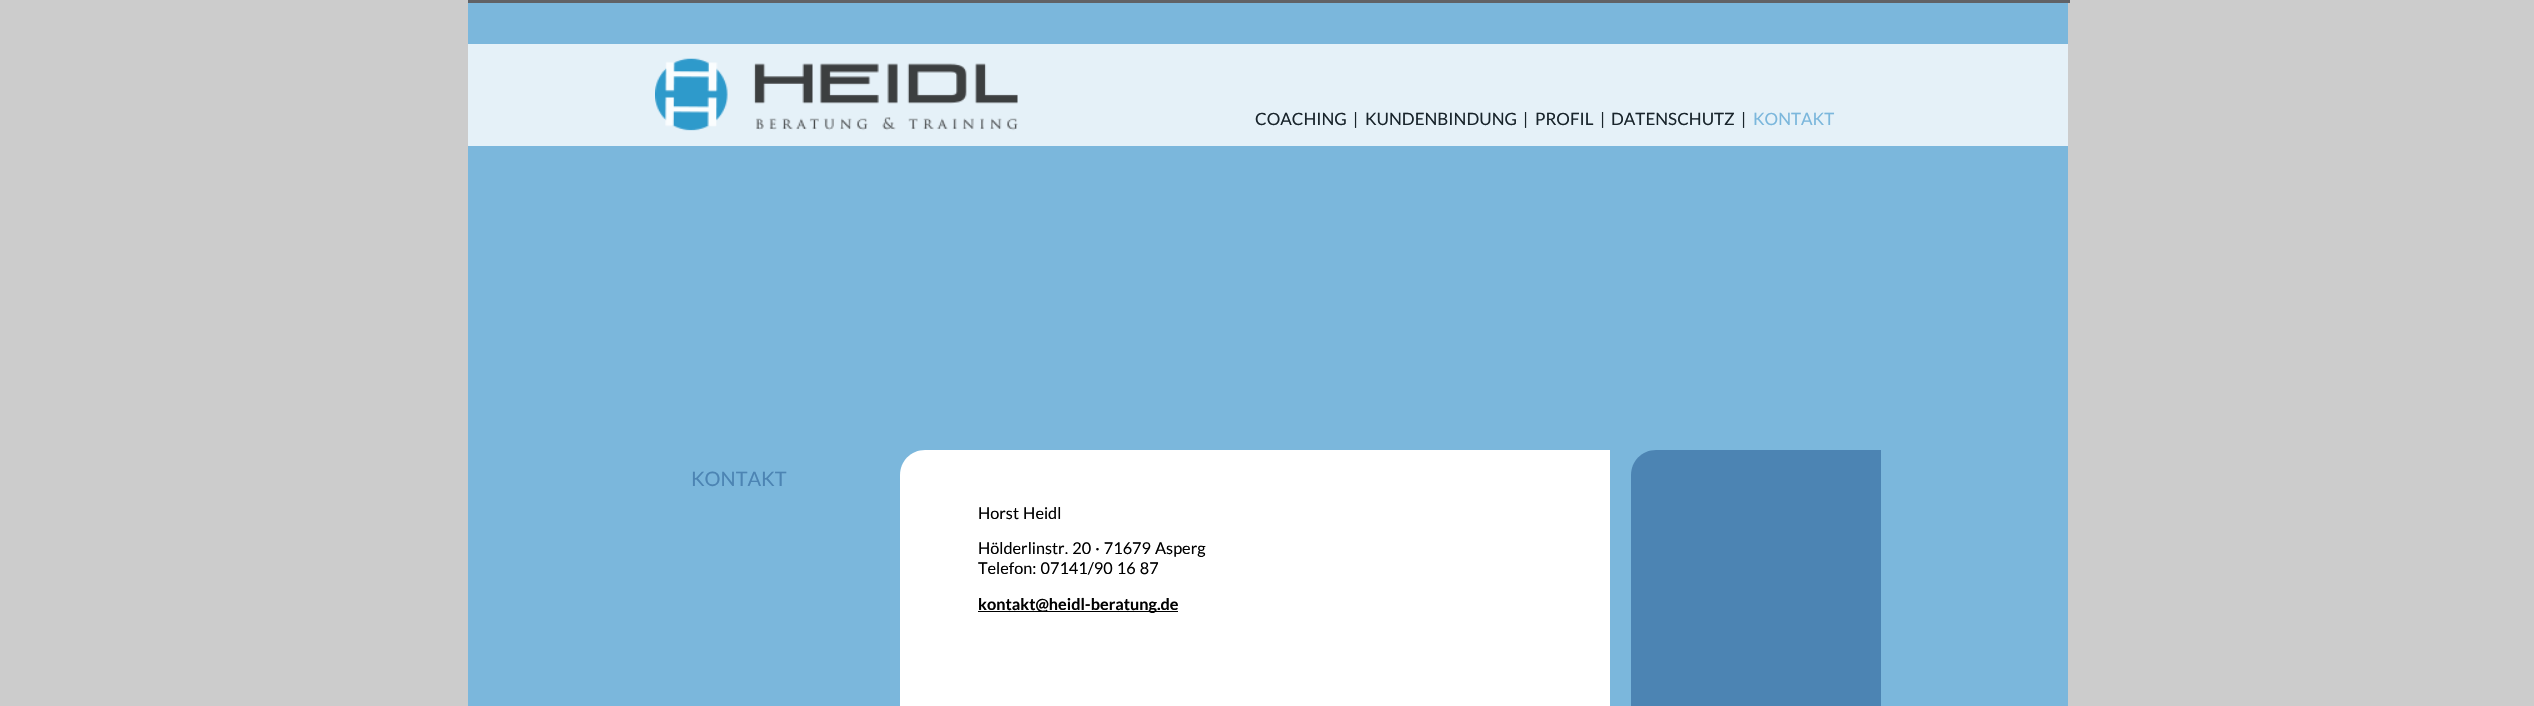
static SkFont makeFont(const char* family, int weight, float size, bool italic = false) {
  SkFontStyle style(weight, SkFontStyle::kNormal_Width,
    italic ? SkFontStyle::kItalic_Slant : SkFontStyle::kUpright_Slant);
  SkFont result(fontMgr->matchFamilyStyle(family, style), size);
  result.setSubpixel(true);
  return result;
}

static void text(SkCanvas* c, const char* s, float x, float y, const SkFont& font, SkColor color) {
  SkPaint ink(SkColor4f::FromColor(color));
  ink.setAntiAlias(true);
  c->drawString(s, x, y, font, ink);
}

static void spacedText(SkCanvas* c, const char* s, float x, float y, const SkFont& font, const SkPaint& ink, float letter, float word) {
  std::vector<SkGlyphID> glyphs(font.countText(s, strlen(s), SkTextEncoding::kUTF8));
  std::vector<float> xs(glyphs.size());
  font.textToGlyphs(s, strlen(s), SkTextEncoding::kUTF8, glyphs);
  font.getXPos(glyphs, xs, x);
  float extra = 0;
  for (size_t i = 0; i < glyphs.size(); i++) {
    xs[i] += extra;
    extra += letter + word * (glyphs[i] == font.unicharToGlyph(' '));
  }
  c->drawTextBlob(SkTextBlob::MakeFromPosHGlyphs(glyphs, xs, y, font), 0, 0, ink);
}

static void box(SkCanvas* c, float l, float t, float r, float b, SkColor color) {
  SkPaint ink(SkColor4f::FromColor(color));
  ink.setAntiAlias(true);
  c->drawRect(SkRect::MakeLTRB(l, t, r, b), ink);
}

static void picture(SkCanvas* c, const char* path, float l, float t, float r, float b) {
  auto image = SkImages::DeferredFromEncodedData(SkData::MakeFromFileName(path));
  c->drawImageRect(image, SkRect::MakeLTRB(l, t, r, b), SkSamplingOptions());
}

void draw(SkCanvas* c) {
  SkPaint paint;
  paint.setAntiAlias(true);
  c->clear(0xffcccccc);
  box(c, 468, 3, 2068, 706, 0xff7bb7dc);
  box(c, 468, 0, 2070, 3, 0xff616266);
  box(c, 468, 44, 2068, 146, 0xffe5f1f8);
  picture(c, "img_01.png", 655, 58, 1018, 131);
  SkFont face1 = makeFont("Lato", 400, 17);
  text(c, "COACHING", 1255, 125, face1, 0xff19252c);
  text(c, "|", 1353, 125, face1, 0xff19252c);
  text(c, "KUNDENBINDUNG", 1365, 125, face1, 0xff19252c);
  text(c, "|", 1523, 125, face1, 0xff19252c);
  text(c, "PROFIL", 1535, 125, face1, 0xff19252c);
  text(c, "|", 1600, 125, face1, 0xff19252c);
  text(c, "DATENSCHUTZ", 1611, 125, face1, 0xff19252c);
  text(c, "|", 1741, 125, face1, 0xff19252c);
  text(c, "KONTAKT", 1753, 125, face1, 0xff7bb7dc);
  SkFont face2 = makeFont("Lato", 400, 20);
  text(c, "KONTAKT", 691, 486, face2, 0xff4c84b3);
  paint.setColor(0xff4c84b3);
  c->drawPath(SkPathBuilder().moveTo(1656, 450).lineTo(1881, 450).lineTo(1881, 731).lineTo(1631, 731).lineTo(1631, 475).cubicTo(1631, 461, 1642, 450, 1656, 450).close().detach(), paint);
  paint.setColor(0xffffffff);
  c->drawPath(SkPathBuilder().moveTo(925, 450).lineTo(1610, 450).lineTo(1610, 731).lineTo(900, 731).lineTo(900, 475).cubicTo(900, 461, 911, 450, 925, 450).close().detach(), paint);
  SkFont face3 = makeFont("Lato", 400, 16.25f);
  paint.setColor(0xff000000);
  spacedText(c, "Horst Heidl", 978, 519, face3, paint, 0, 1);
  spacedText(c, "Hölderlinstr. 20 · 71679 Asperg", 978, 554, face3, paint, 0, 1);
  spacedText(c, "Telefon: 07141/90 16 87", 978, 574, face3, paint, 0, 1);
  box(c, 978, 611, 1178, 612, 0xff000000);
  SkFont face4 = makeFont("Lato", 700, 16.25f);
  text(c, "kontakt@heidl-beratung.de", 978, 610, face4, 0xff000000);
}
